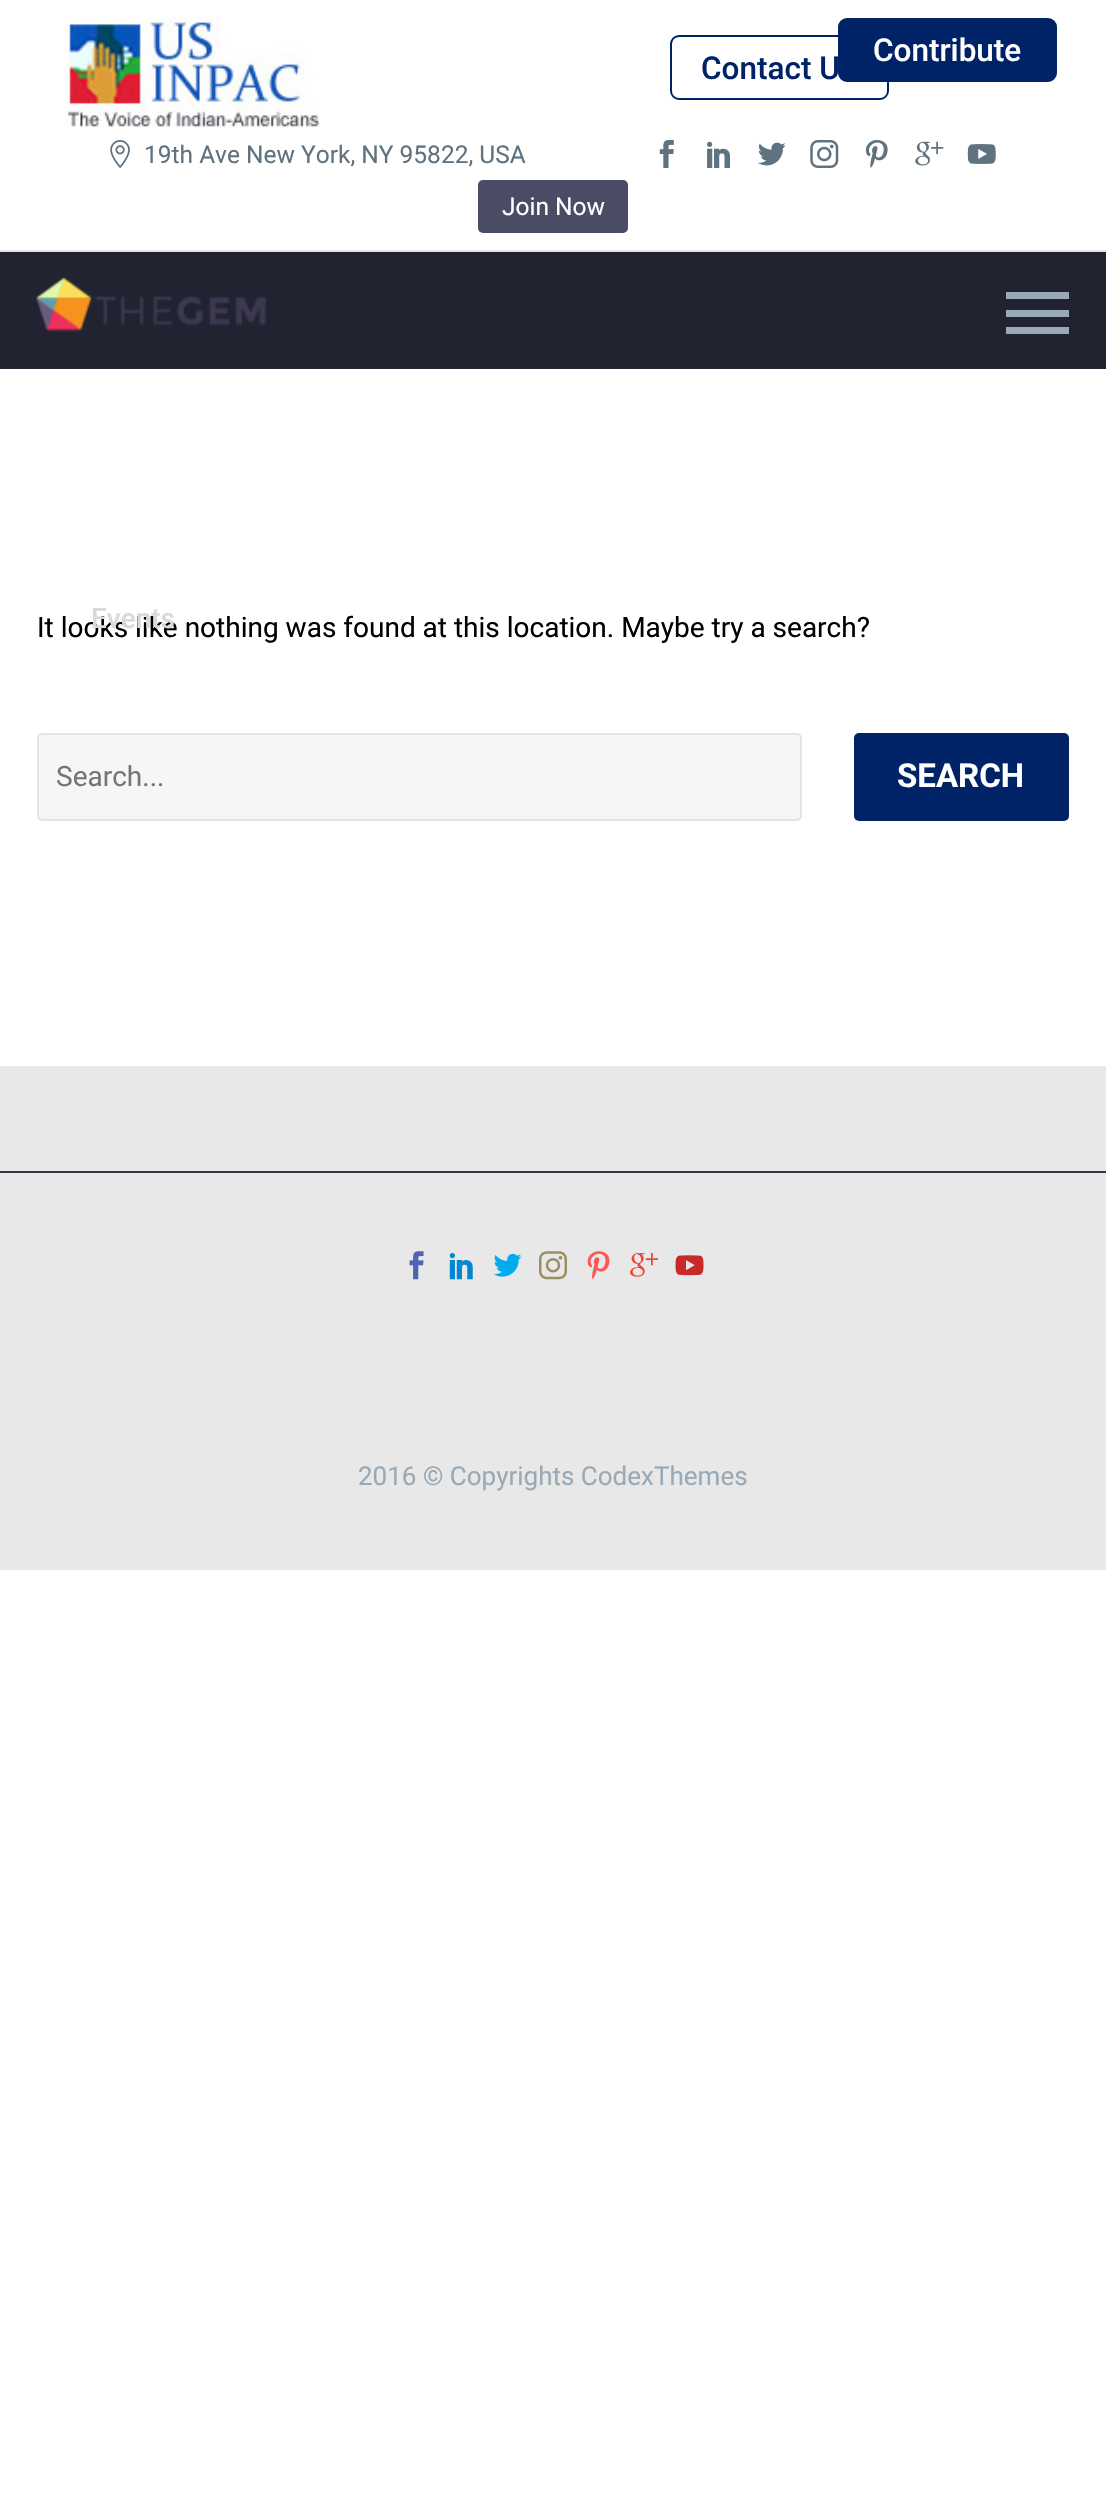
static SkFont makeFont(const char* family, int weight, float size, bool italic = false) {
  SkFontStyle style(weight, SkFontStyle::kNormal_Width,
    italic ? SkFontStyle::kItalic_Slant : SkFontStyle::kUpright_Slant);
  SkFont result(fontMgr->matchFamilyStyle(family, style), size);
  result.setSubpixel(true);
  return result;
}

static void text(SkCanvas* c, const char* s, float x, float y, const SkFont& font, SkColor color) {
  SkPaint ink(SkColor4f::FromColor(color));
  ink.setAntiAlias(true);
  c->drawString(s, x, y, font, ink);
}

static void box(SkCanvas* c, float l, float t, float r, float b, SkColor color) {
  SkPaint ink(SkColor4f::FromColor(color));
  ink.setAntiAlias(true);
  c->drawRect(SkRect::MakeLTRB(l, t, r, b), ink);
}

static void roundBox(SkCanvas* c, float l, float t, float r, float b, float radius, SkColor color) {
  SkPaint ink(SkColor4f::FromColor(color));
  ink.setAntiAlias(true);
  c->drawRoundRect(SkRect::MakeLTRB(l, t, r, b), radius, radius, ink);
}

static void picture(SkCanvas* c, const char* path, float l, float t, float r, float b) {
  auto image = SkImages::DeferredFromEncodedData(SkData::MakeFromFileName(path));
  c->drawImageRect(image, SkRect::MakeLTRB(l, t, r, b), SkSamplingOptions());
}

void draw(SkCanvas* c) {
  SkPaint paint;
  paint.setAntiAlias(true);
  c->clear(0xffffffff);
  box(c, 0, 250, 1106, 252, 0xffdfe5e8);
  picture(c, "img_01.png", 65, 17, 319, 128);
  paint.setStyle(SkPaint::kStroke_Style);
  paint.setStrokeWidth(2);
  paint.setColor(0xff002368);
  c->drawRoundRect(SkRect::MakeLTRB(671, 36, 888, 99), 8, 8, paint);
  paint.setStyle(SkPaint::kFill_Style);
  c->drawRoundRect(SkRect::MakeLTRB(839, 19, 1056, 81), 8, 8, paint);
  paint.setStyle(SkPaint::kStroke_Style);
  c->drawRoundRect(SkRect::MakeLTRB(839, 19, 1056, 81), 8, 8, paint);
  SkFont face1 = makeFont("Roboto", 500, 31.5f);
  text(c, "Contribute", 873, 61, face1, 0xffffffff);
  text(c, "Contact U", 701, 79, face1, 0xff002368);
  picture(c, "img_02.png", 110, 140, 130, 168);
  SkFont face2 = makeFont("Roboto", 400, 24.5f);
  text(c, "19th Ave New York, NY 95822, USA", 144, 163, face2, 0xff5f727f);
  picture(c, "img_03.png", 659, 140, 674, 168);
  picture(c, "img_04.png", 707, 141, 730, 168);
  picture(c, "img_05.png", 758, 142, 786, 166);
  picture(c, "img_06.png", 810, 140, 839, 168);
  picture(c, "img_07.png", 865, 140, 888, 168);
  picture(c, "img_08.png", 915, 141, 944, 166);
  picture(c, "img_09.png", 967, 144, 996, 164);
  roundBox(c, 478, 180, 628, 233, 5, 0xff494c64);
  text(c, "Join Now", 502, 215, face2, 0xffffffff);
  box(c, 0, 252, 1106, 369, 0xff212331);
  picture(c, "img_10.png", 36, 278, 267, 332);
  box(c, 1006, 292, 1069, 299, 0xff99a9b5);
  box(c, 1006, 310, 1069, 317, 0xff99a9b5);
  box(c, 1006, 327, 1069, 334, 0xff99a9b5);
  SkFont face3 = makeFont("Roboto", 400, 28);
  text(c, "It looks like nothing was found at this location. Maybe try a search?", 37, 637, face3, 0xff000000);
  SkFont face4 = makeFont("Roboto", 500, 28);
  text(c, "Events", 91, 628, face4, 0xffd9d9d9);
  paint.setStyle(SkPaint::kFill_Style);
  paint.setColor(0xfff4f6f7);
  c->drawRoundRect(SkRect::MakeLTRB(38, 734, 801, 820), 4, 4, paint);
  paint.setStyle(SkPaint::kStroke_Style);
  paint.setColor(0xffdfe5e8);
  c->drawRoundRect(SkRect::MakeLTRB(38, 734, 801, 820), 4, 4, paint);
  text(c, "Search...", 56, 786, face3, 0xff757575);
  roundBox(c, 854, 733, 1069, 821, 5, 0xff002368);
  SkFont face5 = makeFont("Roboto", 700, 33);
  text(c, "SEARCH", 897, 787, face5, 0xffffffff);
  box(c, 0, 1066, 1106, 1171, 0xffe8e8e8);
  box(c, 0, 1173, 1106, 1570, 0xffe8e8e8);
  box(c, 0, 1171, 1106, 1173, 0xff313646);
  picture(c, "img_11.png", 409, 1251, 424, 1280);
  picture(c, "img_12.png", 449, 1253, 473, 1280);
  picture(c, "img_13.png", 493, 1253, 522, 1277);
  picture(c, "img_14.png", 539, 1251, 567, 1280);
  picture(c, "img_15.png", 587, 1251, 610, 1280);
  picture(c, "img_16.png", 630, 1253, 658, 1277);
  picture(c, "img_17.png", 675, 1255, 704, 1276);
  SkFont face6 = makeFont("Roboto", 400, 26);
  text(c, "2016 © Copyrights CodexThemes", 358, 1485, face6, 0xff99a9b5);
}
